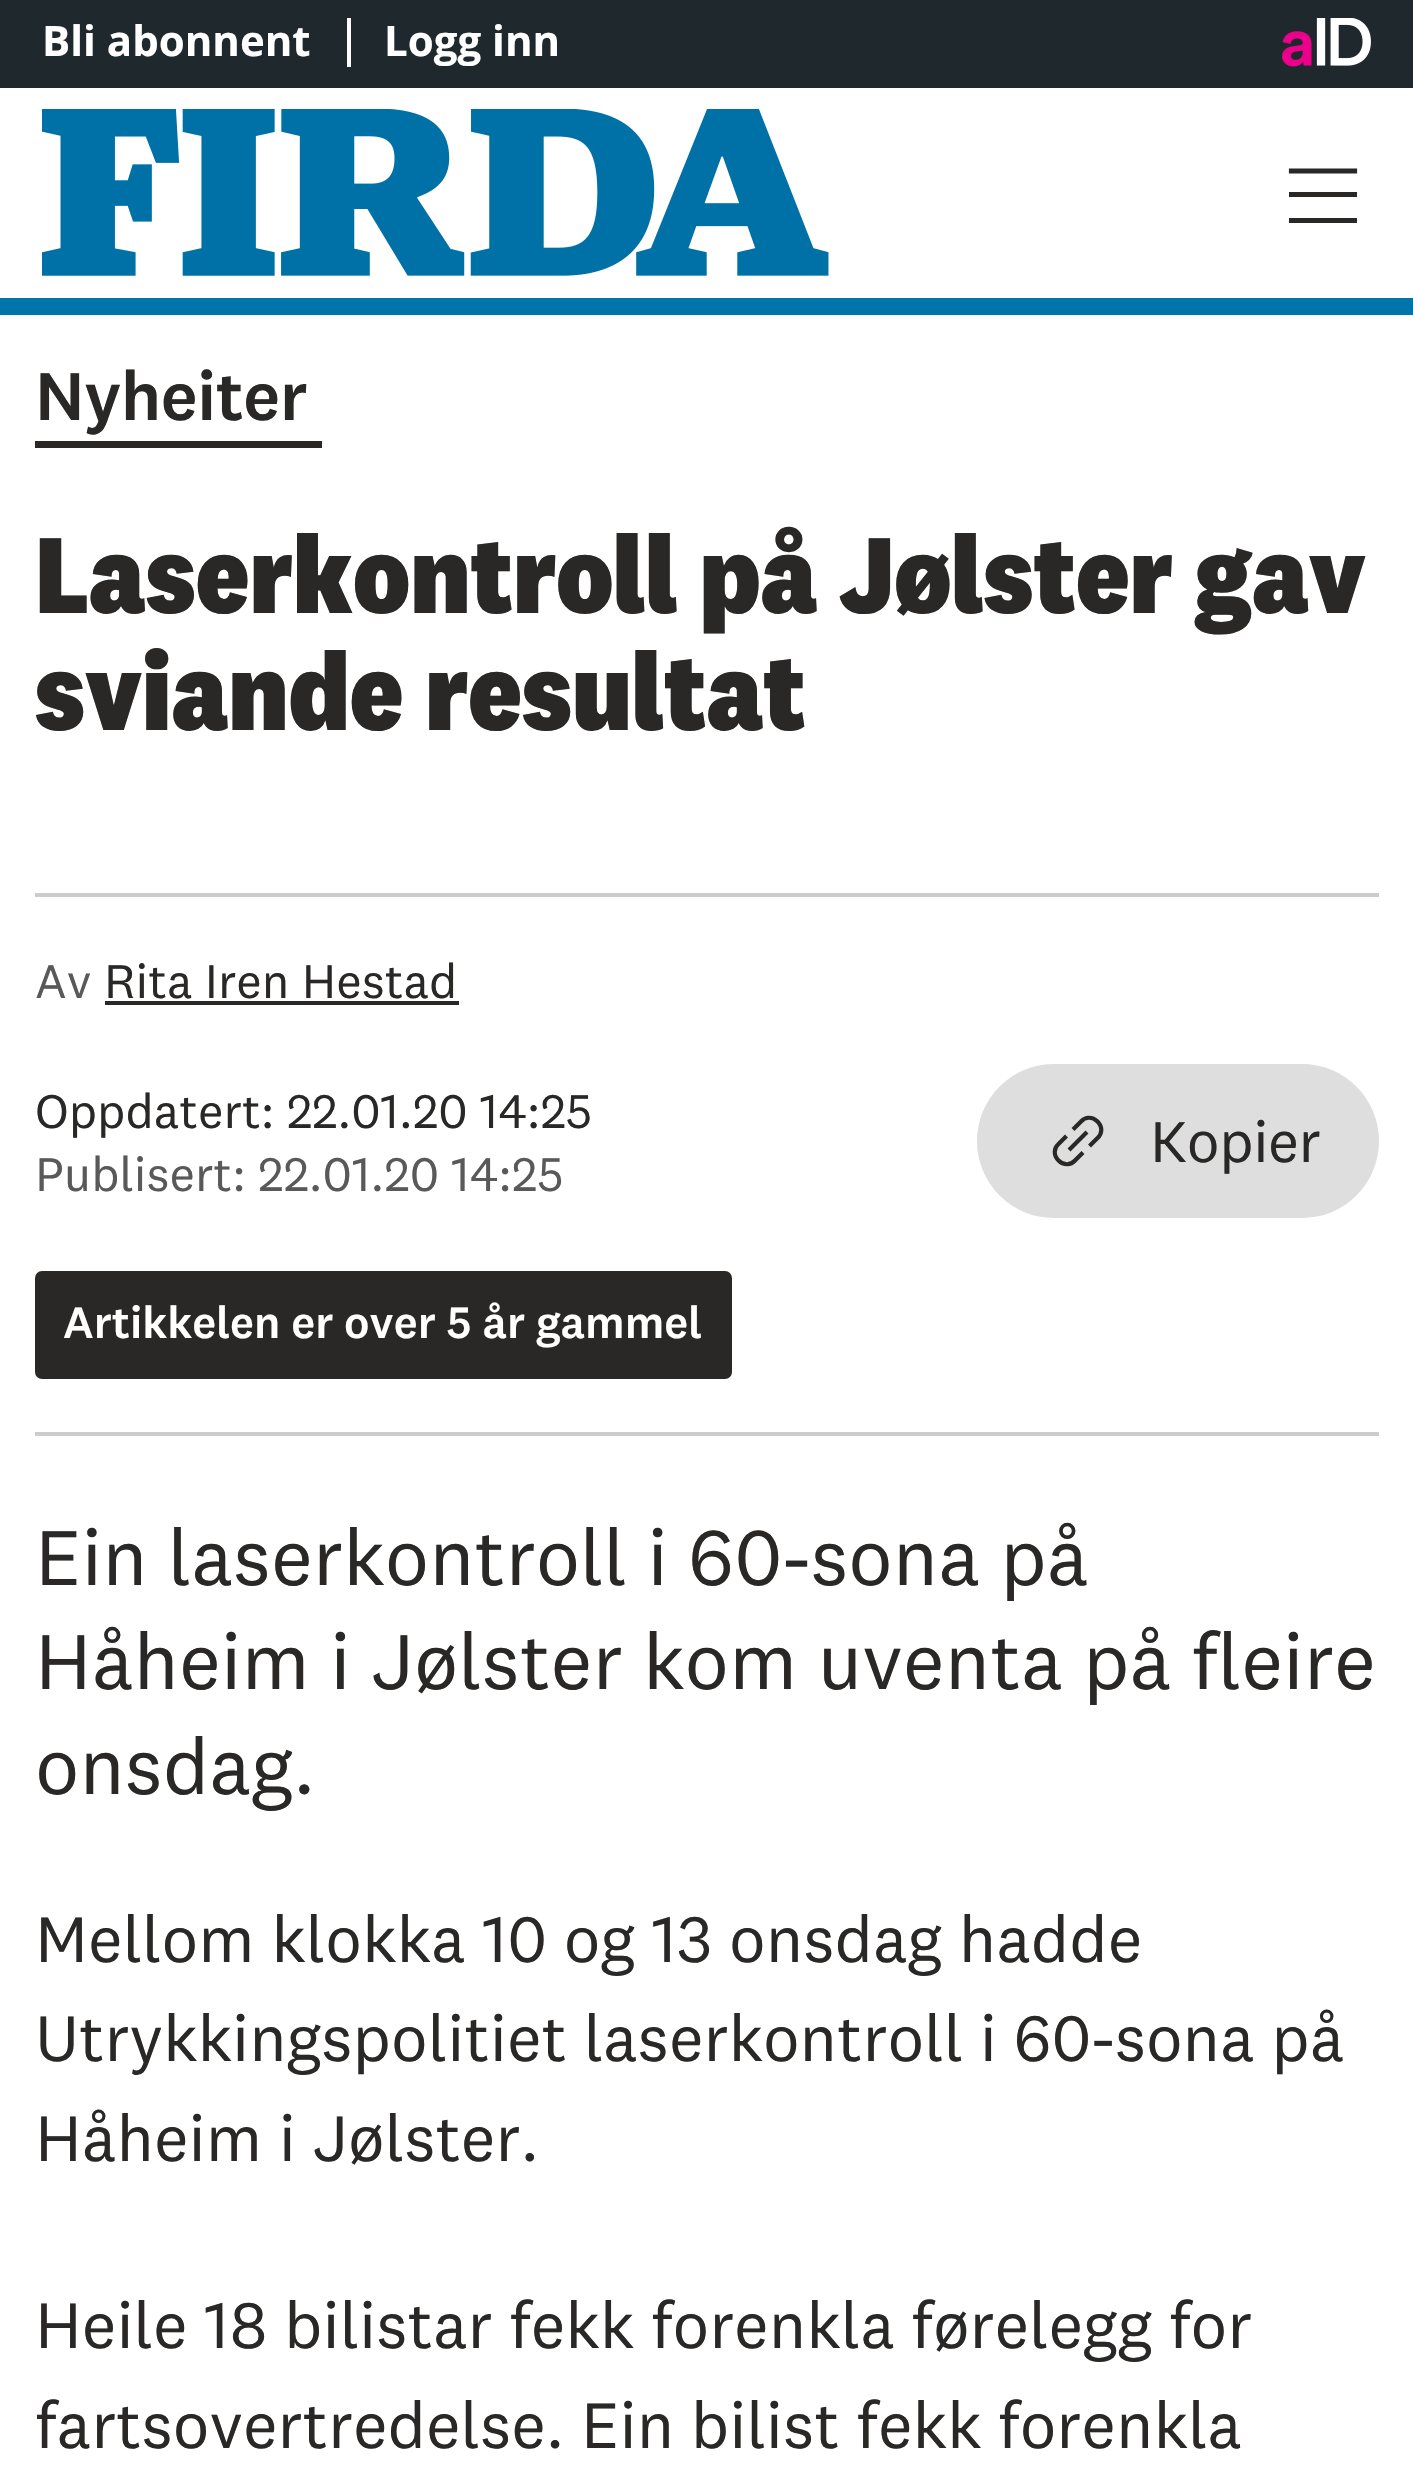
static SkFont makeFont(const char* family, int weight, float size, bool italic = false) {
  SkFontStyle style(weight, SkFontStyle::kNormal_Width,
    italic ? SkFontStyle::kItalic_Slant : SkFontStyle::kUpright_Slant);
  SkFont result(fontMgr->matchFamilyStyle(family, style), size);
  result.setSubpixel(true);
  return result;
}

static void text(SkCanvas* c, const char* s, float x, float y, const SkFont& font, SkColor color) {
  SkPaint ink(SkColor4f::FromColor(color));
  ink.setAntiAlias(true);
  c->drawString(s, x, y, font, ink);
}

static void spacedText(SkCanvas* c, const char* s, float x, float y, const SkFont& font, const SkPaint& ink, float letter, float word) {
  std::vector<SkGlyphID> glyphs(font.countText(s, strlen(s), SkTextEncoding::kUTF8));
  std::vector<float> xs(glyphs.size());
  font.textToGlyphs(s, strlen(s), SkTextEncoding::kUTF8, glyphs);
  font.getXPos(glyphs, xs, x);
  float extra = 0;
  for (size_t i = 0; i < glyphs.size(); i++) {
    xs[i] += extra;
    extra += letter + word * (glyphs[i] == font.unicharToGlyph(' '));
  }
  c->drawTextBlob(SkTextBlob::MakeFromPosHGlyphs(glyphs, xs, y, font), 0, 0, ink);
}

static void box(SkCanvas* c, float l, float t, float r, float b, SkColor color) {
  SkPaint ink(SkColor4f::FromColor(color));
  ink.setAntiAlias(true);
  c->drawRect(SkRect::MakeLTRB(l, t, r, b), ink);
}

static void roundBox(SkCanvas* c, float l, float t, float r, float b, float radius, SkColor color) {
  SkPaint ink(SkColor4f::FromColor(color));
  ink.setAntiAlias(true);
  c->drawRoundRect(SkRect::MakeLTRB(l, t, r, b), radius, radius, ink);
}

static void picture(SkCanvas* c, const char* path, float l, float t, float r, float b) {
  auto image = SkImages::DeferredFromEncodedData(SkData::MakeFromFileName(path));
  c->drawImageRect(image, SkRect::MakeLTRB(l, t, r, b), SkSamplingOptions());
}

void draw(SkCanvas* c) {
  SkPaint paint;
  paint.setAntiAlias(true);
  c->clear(0xffffffff);
  box(c, 0, 0, 1413, 88, 0xff1e282d);
  SkFont face1 = makeFont("Open Sans", 700, 42);
  text(c, "Bli abonnent", 42, 56, face1, 0xffffffff);
  box(c, 347, 18, 351, 67, 0xffffffff);
  text(c, "Logg inn", 384, 56, face1, 0xffffffff);
  picture(c, "img_01.png", 1282, 18, 1371, 67);
  picture(c, "img_02.png", 42, 109, 829, 276);
  box(c, 0, 298, 1413, 315, 0xff0075a9);
  paint.setStyle(SkPaint::kStroke_Style);
  paint.setStrokeWidth(5.2f);
  paint.setStrokeCap(SkPaint::kSquare_Cap);
  paint.setColor(0xff292827);
  c->drawPath(SkPathBuilder().moveTo(1291.5f, 171).lineTo(1354.5f, 171).detach(), paint);
  box(c, 1289, 192, 1357, 197, 0xff292827);
  box(c, 1289, 218, 1357, 223, 0xff292827);
  box(c, 35, 441, 322, 448, 0xff292827);
  SkFont face2 = makeFont("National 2", 500, 70);
  paint.setStyle(SkPaint::kFill_Style);
  spacedText(c, "Nyheiter", 35, 420, face2, paint, -0.5f, 0);
  SkFont face3 = makeFont("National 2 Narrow", 800, 112);
  text(c, "Laserkontroll på Jølster gav", 35, 613, face3, 0xff292827);
  text(c, "sviande resultat", 35, 730, face3, 0xff292827);
  box(c, 35, 893, 1379, 897, 0xffcccccc);
  box(c, 35, 1432, 1379, 1436, 0xffcccccc);
  SkFont face4 = makeFont("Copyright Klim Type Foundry", 400, 49);
  text(c, "Av", 35, 998, face4, 0xff595959);
  text(c, "Rita Iren Hestad", 104, 998, face4, 0xff292827);
  box(c, 105, 1001, 459, 1005, 0xff292827);
  text(c, "Oppdatert: 22.01.20 14:25", 35, 1128, face4, 0xff292827);
  text(c, "Publisert: 22.01.20 14:25", 35, 1191, face4, 0xff595959);
  roundBox(c, 977, 1064, 1379, 1218, 77, 0xffdedede);
  paint.setStyle(SkPaint::kStroke_Style);
  paint.setStrokeWidth(4.2f);
  paint.setStrokeCap(SkPaint::kButt_Cap);
  c->drawPath(SkPathBuilder().moveTo(1083, 1152.5f).lineTo(1075, 1160.5f).cubicTo(1071, 1165, 1064, 1166, 1058.5f, 1160.5f).cubicTo(1053, 1155, 1054, 1148, 1058.5f, 1144).lineTo(1066.5f, 1136).moveTo(1073, 1129.5f).lineTo(1081, 1121.5f).cubicTo(1085, 1117, 1092, 1116, 1097.5f, 1121.5f).cubicTo(1103, 1127, 1102, 1134, 1097.5f, 1138).lineTo(1089.5f, 1146).moveTo(1069, 1150).lineTo(1087, 1132).detach(), paint);
  SkFont face5 = makeFont("Copyright Klim Type Foundry", 400, 59.5f);
  paint.setStyle(SkPaint::kFill_Style);
  spacedText(c, "Kopier", 1150, 1162, face5, paint, -0.5f, 0);
  roundBox(c, 35, 1271, 732, 1379, 7, 0xff292827);
  SkFont face6 = makeFont("National 2", 500, 45.5f);
  text(c, "Artikkelen er over 5 år gammel", 63, 1338, face6, 0xffffffff);
  SkFont face7 = makeFont("Copyright Klim Type Foundry", 400, 80.5f);
  text(c, "Ein laserkontroll i 60-sona på", 35, 1585, face7, 0xff292827);
  text(c, "Håheim i Jølster kom uventa på fleire", 35, 1689, face7, 0xff292827);
  text(c, "onsdag.", 35, 1794, face7, 0xff292827);
  SkFont face8 = makeFont("Copyright Klim Type Foundry", 400, 66.5f);
  text(c, "Mellom klokka 10 og 13 onsdag hadde", 35, 1962, face8, 0xff292827);
  text(c, "Utrykkingspolitiet laserkontroll i 60-sona på", 35, 2061, face8, 0xff292827);
  text(c, "Håheim i Jølster.", 35, 2161, face8, 0xff292827);
  text(c, "Heile 18 bilistar fekk forenkla førelegg for", 35, 2348, face8, 0xff292827);
  text(c, "fartsovertredelse. Ein bilist fekk forenkla", 35, 2448, face8, 0xff292827);
}
